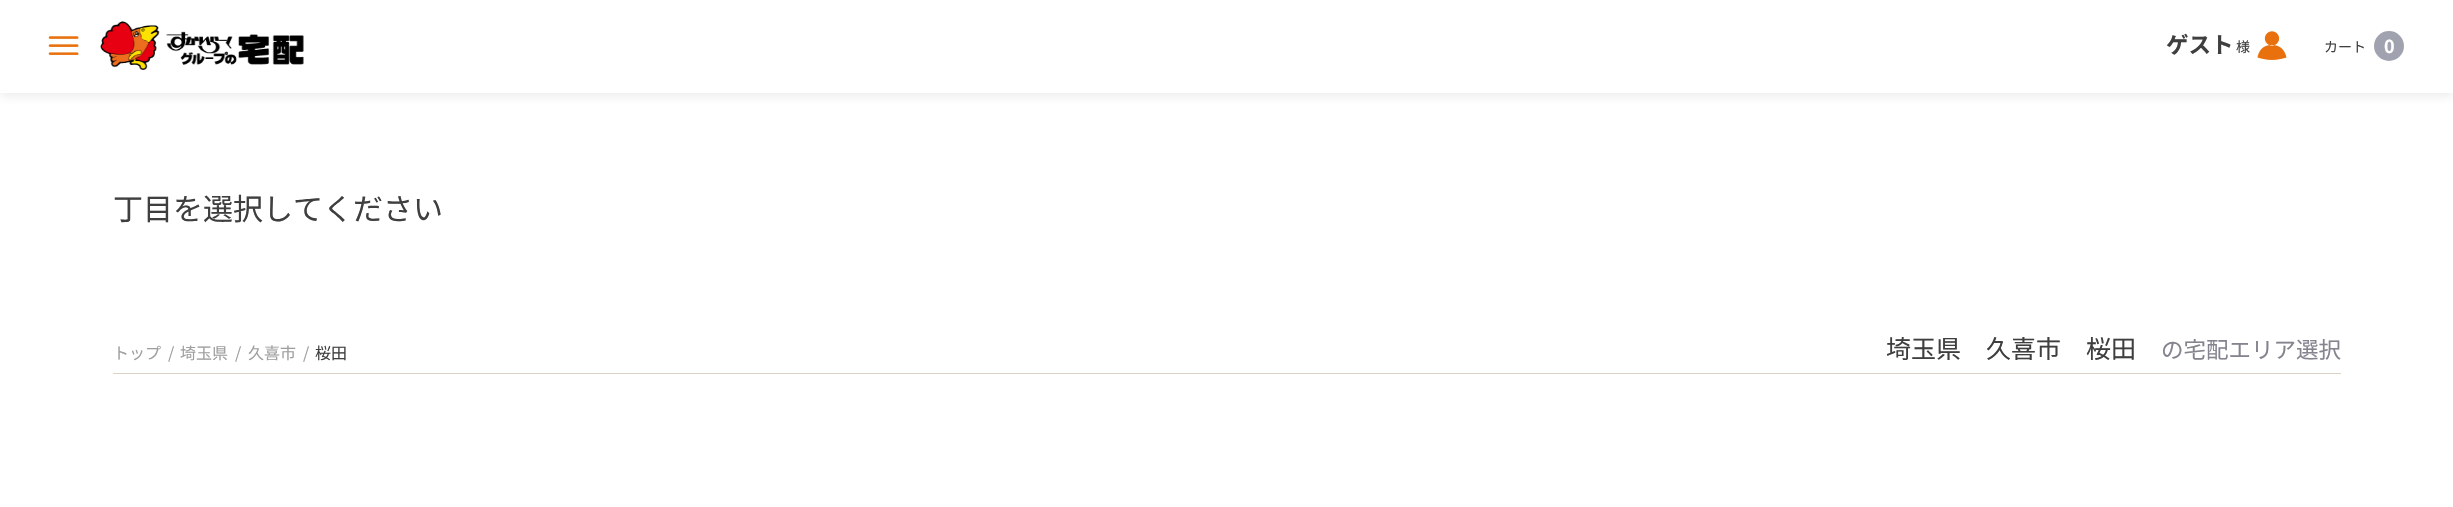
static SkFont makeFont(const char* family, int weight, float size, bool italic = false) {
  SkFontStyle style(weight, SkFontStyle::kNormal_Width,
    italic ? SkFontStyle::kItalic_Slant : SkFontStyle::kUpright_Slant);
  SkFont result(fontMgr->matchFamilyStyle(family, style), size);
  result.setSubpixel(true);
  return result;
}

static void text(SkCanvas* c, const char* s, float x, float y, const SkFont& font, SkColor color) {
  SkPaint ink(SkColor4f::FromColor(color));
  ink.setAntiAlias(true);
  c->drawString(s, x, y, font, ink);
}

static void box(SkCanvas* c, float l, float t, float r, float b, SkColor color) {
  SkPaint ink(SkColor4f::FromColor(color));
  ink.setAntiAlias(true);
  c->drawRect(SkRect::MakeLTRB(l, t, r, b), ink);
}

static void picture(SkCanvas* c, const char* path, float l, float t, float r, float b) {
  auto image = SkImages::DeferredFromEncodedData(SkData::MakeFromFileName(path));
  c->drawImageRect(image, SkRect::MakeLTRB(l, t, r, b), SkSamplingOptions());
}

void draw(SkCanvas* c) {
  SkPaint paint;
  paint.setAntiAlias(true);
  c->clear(0xffffffff);
  paint.setColor(0x1a3f3f3f);
  paint.setMaskFilter(SkMaskFilter::MakeBlur(kNormal_SkBlurStyle, 5));
  c->drawRect(SkRect::MakeLTRB(0, 4, 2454, 96), paint);
  paint.setMaskFilter(nullptr);
  box(c, 0, 0, 2453, 93, 0xffffffff);
  picture(c, "img_01.png", 48, 36, 79, 55);
  picture(c, "img_02.png", 100, 21, 304, 70);
  SkFont face1 = makeFont("Noto Sans JP", 700, 22.5f);
  text(c, "ゲスト", 2166, 53, face1, 0xff3f3f3f);
  SkFont face2 = makeFont("Noto Sans JP", 400, 14);
  text(c, "様", 2236, 52, face2, 0xff3f3f3f);
  picture(c, "img_03.png", 2257, 31, 2287, 60);
  text(c, "カート", 2324, 52, face2, 0xff3f3f3f);
  paint.setColor(0xffa0a3af);
  c->drawCircle(2389, 46, 15, paint);
  SkFont face3 = makeFont("Noto Sans JP", 700, 18);
  text(c, "0", 2384, 53, face3, 0xffffffff);
  SkFont face4 = makeFont("Noto Sans JP", 400, 30);
  text(c, "丁目を選択してください", 113, 220, face4, 0xff3f3f3f);
  box(c, 113, 373, 2341, 374, 0xffdbd3c4);
  SkFont face5 = makeFont("Noto Sans JP", 400, 16);
  text(c, "トップ", 113, 359, face5, 0xff9f9f9f);
  text(c, "/", 168, 359, face5, 0xff9f9f9f);
  text(c, "埼玉県", 180, 359, face5, 0xff9f9f9f);
  text(c, "/", 235, 359, face5, 0xff9f9f9f);
  text(c, "久喜市", 248, 359, face5, 0xff9f9f9f);
  text(c, "/", 303, 359, face5, 0xff9f9f9f);
  text(c, "桜田", 315, 359, face5, 0xff3f3f3f);
  SkFont face6 = makeFont("Noto Sans JP", 400, 25);
  text(c, "埼玉県　久喜市　桜田", 1886, 358, face6, 0xff3f3f3f);
  SkFont face7 = makeFont("Noto Sans JP", 400, 22.5f);
  text(c, "の宅配エリア選択", 2161, 358, face7, 0xff84848f);
}
